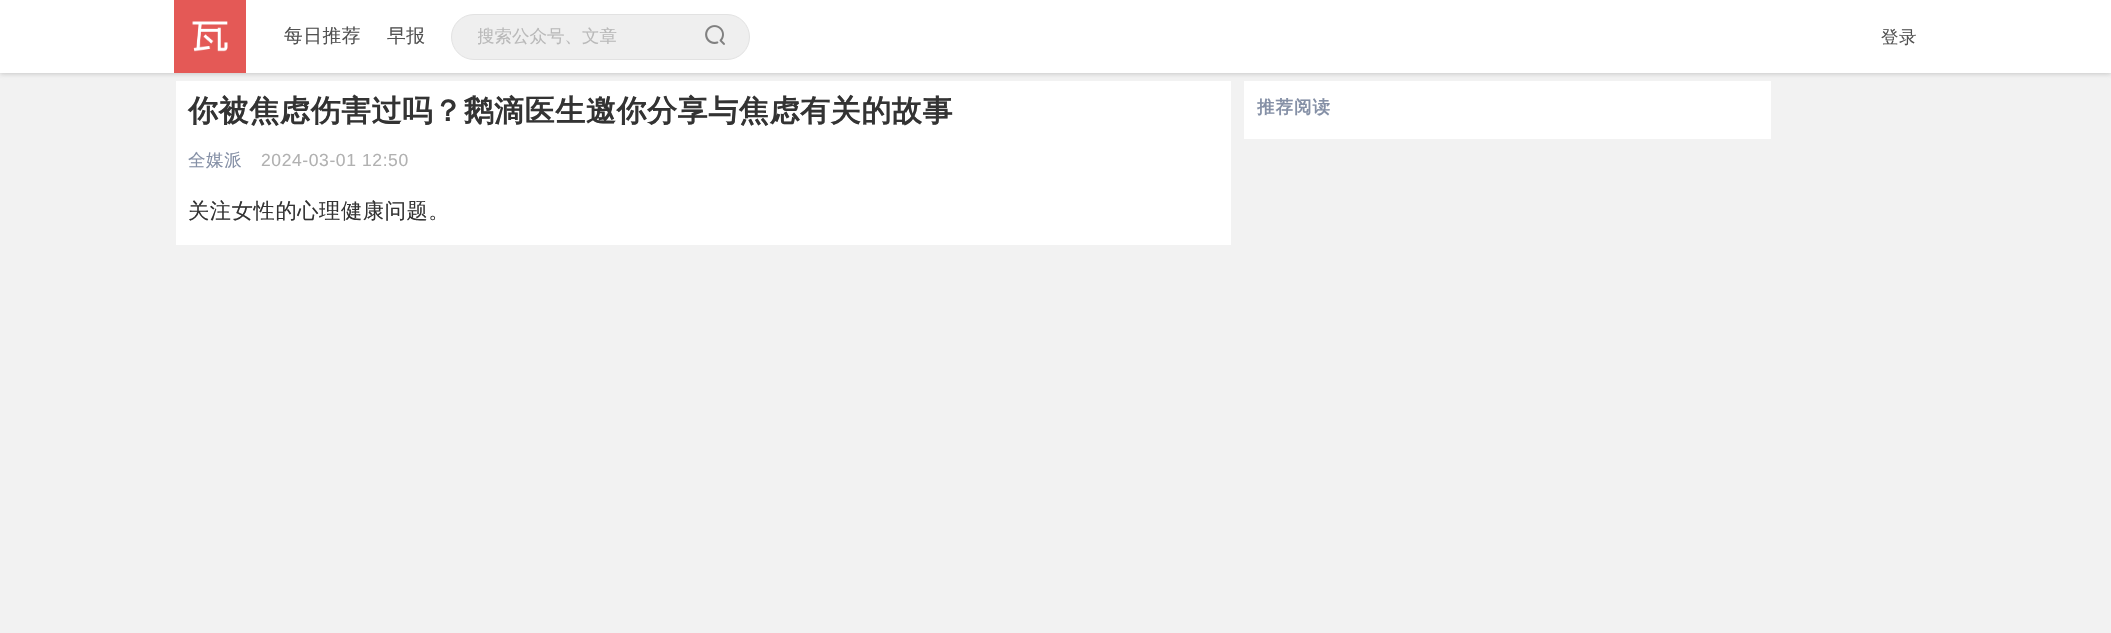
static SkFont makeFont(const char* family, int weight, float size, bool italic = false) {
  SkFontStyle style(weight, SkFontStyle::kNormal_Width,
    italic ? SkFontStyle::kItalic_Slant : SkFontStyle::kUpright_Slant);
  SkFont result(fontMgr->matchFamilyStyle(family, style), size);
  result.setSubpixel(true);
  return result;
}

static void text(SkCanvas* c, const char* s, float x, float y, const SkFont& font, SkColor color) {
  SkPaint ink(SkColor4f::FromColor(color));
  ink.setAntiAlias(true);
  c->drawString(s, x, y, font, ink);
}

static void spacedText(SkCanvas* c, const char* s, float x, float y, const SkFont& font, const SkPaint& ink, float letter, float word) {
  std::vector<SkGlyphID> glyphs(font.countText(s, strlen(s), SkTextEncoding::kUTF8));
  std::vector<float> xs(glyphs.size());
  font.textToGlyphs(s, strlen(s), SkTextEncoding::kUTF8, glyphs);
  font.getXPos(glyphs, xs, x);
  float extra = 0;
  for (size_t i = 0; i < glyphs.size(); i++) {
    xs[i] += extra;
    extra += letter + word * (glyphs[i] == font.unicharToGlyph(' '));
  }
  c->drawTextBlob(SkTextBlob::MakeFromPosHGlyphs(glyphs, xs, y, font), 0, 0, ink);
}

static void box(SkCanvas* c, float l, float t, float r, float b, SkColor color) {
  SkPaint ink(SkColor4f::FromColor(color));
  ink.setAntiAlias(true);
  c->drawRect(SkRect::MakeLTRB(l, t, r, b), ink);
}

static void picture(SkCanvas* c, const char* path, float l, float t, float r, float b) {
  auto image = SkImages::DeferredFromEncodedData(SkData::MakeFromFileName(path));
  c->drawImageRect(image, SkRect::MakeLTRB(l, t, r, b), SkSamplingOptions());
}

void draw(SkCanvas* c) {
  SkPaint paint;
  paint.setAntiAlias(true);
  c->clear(0xfff2f2f2);
  box(c, 176, 81, 1231, 245, 0xffffffff);
  box(c, 1244, 81, 1771, 139, 0xffffffff);
  paint.setColor(0x809c9c9c);
  paint.setMaskFilter(SkMaskFilter::MakeBlur(kNormal_SkBlurStyle, 2.5f));
  c->drawRect(SkRect::MakeLTRB(0, 1, 2111, 74), paint);
  paint.setMaskFilter(nullptr);
  box(c, 0, 0, 2111, 73, 0xffffffff);
  box(c, 174, 0, 246, 73, 0xffe45956);
  picture(c, "img_01.png", 192, 21, 228, 52);
  SkFont face1 = makeFont("WenQuanYi Zen Hei", 500, 18.75f);
  paint.setColor(0xff525252);
  spacedText(c, "每日推荐", 284, 42, face1, paint, 0.5f, 0);
  spacedText(c, "早报", 387, 42, face1, paint, 0.5f, 0);
  paint.setColor(0xffefefef);
  c->drawRoundRect(SkRect::MakeLTRB(451.5f, 14.5f, 749.5f, 59.5f), 22.5f, 22.5f, paint);
  paint.setStyle(SkPaint::kStroke_Style);
  paint.setStrokeWidth(1);
  paint.setColor(0xffe2e2e2);
  c->drawRoundRect(SkRect::MakeLTRB(451.5f, 14.5f, 749.5f, 59.5f), 22.5f, 22.5f, paint);
  c->save();
  c->clipRect(SkRect::MakeLTRB(478, 26, 704, 49));
  SkFont face2 = makeFont("WenQuanYi Zen Hei", 500, 17.5f);
  text(c, "搜索公众号、文章", 477, 42, face2, 0xffb9b9b9);
  c->restore();
  picture(c, "img_02.png", 705, 25, 725, 45);
  paint.setStyle(SkPaint::kFill_Style);
  paint.setColor(0xff525252);
  spacedText(c, "登录", 1881, 43, face2, paint, 0.5f, 0);
  SkFont face3 = makeFont("WenQuanYi Zen Hei", 700, 30);
  paint.setColor(0xff333333);
  spacedText(c, "你被焦虑伤害过吗？鹅滴医生邀你分享与焦虑有关的故事", 188, 121, face3, paint, 0.6f, 0);
  paint.setColor(0xff8590a6);
  spacedText(c, "全媒派", 188, 166, face2, paint, 0.6f, 0);
  SkFont face4 = makeFont("Liberation Sans", 400, 17.5f);
  paint.setColor(0xffb1b1b1);
  spacedText(c, "2024-03-01 12:50", 261, 166, face4, paint, 0.6f, 0);
  SkFont face5 = makeFont("WenQuanYi Zen Hei", 500, 21.25f);
  paint.setColor(0xff333333);
  spacedText(c, "关注女性的心理健康问题。", 188, 218, face5, paint, 0.6f, 0);
  SkFont face6 = makeFont("WenQuanYi Zen Hei", 700, 17.5f);
  paint.setColor(0xff8590a6);
  spacedText(c, "推荐阅读", 1257, 113, face6, paint, 1, 0);
}
